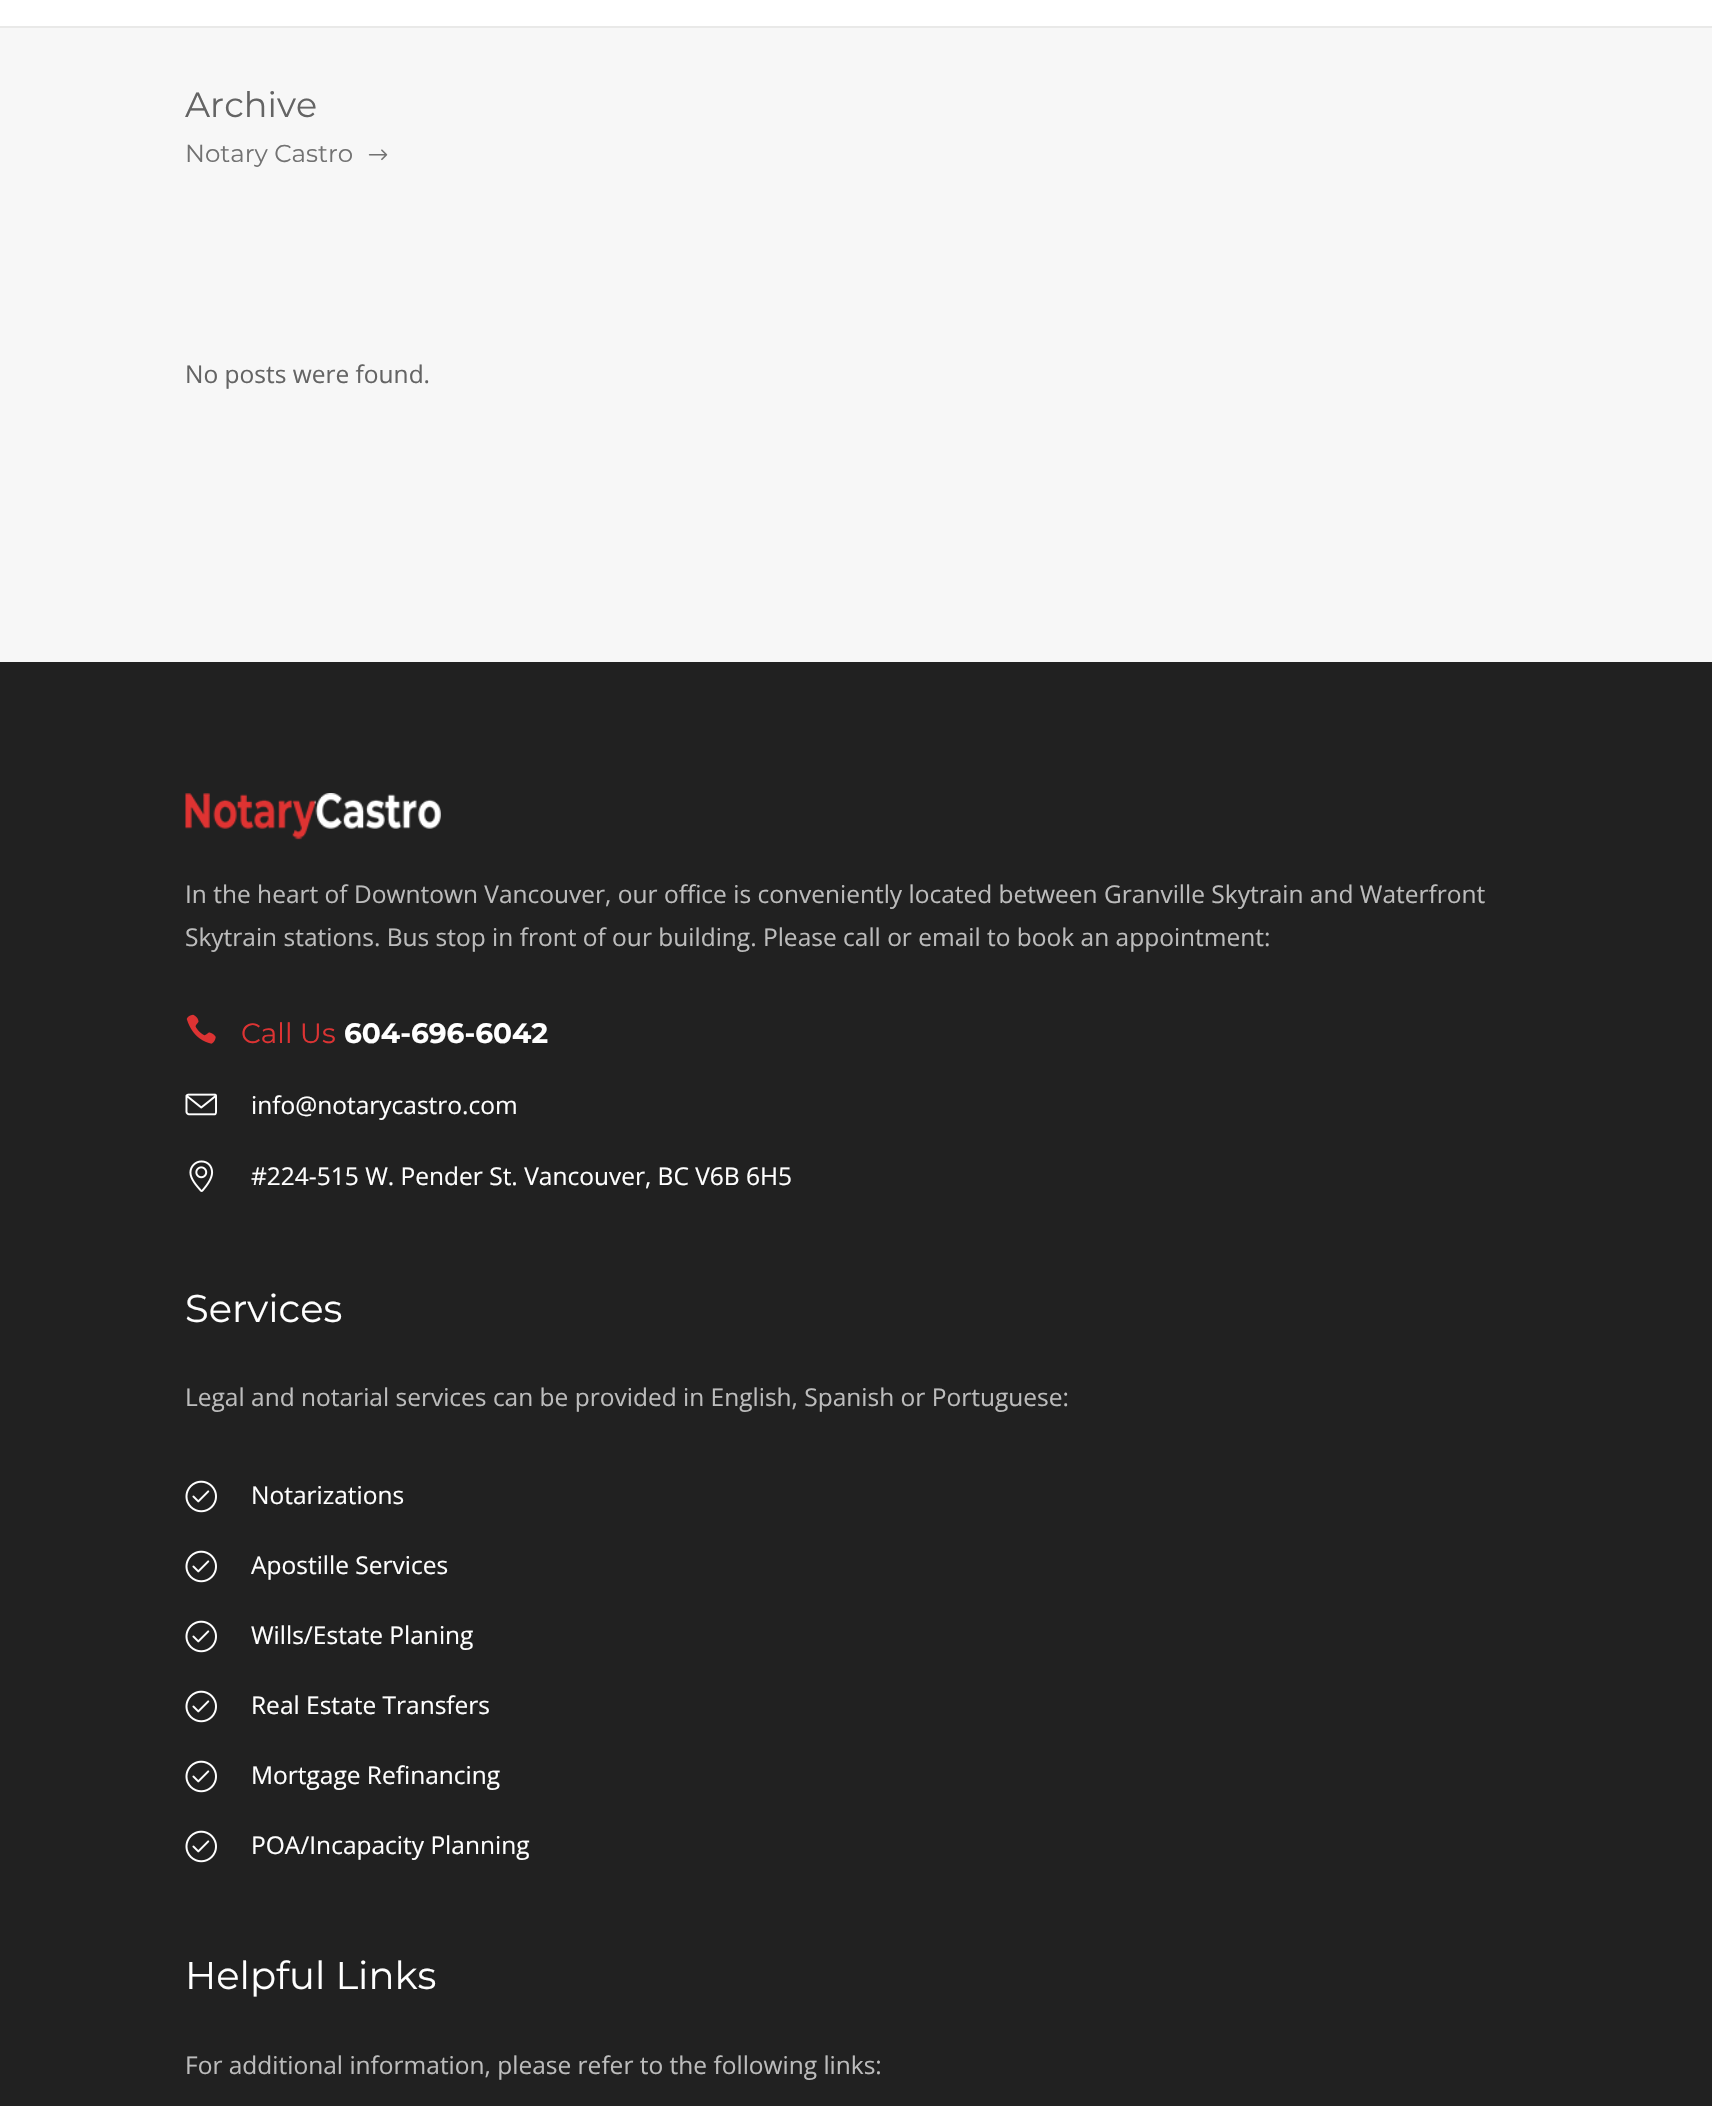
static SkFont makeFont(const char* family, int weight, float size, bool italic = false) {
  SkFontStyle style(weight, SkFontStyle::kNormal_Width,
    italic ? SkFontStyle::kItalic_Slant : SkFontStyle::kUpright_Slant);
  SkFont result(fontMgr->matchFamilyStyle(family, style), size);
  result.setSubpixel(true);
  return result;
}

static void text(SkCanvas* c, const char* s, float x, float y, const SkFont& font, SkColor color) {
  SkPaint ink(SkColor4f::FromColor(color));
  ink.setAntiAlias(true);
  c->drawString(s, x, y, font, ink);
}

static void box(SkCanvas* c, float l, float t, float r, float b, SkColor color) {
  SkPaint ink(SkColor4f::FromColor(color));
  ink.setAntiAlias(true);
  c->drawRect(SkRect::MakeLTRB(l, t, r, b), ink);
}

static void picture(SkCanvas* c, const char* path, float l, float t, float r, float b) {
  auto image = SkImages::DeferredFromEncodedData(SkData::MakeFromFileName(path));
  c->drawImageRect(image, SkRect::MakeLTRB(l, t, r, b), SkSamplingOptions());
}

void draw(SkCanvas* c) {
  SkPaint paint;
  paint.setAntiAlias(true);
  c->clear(0xffffffff);
  box(c, 0, 26, 1712, 28, 0xffe9e9e8);
  box(c, 0, 28, 1712, 662, 0xfff7f7f7);
  SkFont face1 = makeFont("Montserrat", 400, 35);
  text(c, "Archive", 185, 117, face1, 0xff646464);
  SkFont face2 = makeFont("Montserrat", 400, 24.5f);
  text(c, "Notary Castro", 185, 162, face2, 0xff727272);
  picture(c, "img_01.png", 368, 149, 388, 161);
  SkFont face3 = makeFont("Open Sans", 400, 24.5f);
  text(c, "No posts were found.", 185, 383, face3, 0xff646464);
  box(c, 0, 662, 1712, 2106, 0xff212121);
  picture(c, "img_02.png", 185, 793, 441, 840);
  text(c, "In the heart of Downtown Vancouver, our office is conveniently located between Granville Skytrain and Waterfront", 185, 903, face3, 0xffbcbcbc);
  text(c, "Skytrain stations. Bus stop in front of our building. Please call or email to book an appointment:", 185, 946, face3, 0xffbcbcbc);
  picture(c, "img_03.png", 186, 1014, 216, 1044);
  SkFont face4 = makeFont("Montserrat", 400, 28);
  text(c, "Call Us", 241, 1043, face4, 0xffdd3333);
  SkFont face5 = makeFont("Montserrat", 700, 28);
  text(c, "604-696-6042", 344, 1043, face5, 0xffffffff);
  picture(c, "img_04.png", 185, 1093, 217, 1116);
  text(c, "info@notarycastro.com", 251, 1114, face3, 0xffffffff);
  picture(c, "img_05.png", 189, 1160, 214, 1192);
  text(c, "#224-515 W. Pender St. Vancouver, BC V6B 6H5", 251, 1185, face3, 0xffffffff);
  SkFont face6 = makeFont("Montserrat", 400, 38.5f);
  text(c, "Services", 185, 1322, face6, 0xffffffff);
  text(c, "Legal and notarial services can be provided in English, Spanish or Portuguese:", 185, 1406, face3, 0xffbcbcbc);
  picture(c, "img_06.png", 185, 1480, 217, 1513);
  text(c, "Notarizations", 251, 1504, face3, 0xffffffff);
  picture(c, "img_06.png", 185, 1550, 217, 1583);
  text(c, "Apostille Services", 251, 1574, face3, 0xffffffff);
  picture(c, "img_06.png", 185, 1620, 217, 1653);
  text(c, "Wills/Estate Planing", 251, 1644, face3, 0xffffffff);
  picture(c, "img_06.png", 185, 1690, 217, 1723);
  text(c, "Real Estate Transfers", 251, 1714, face3, 0xffffffff);
  picture(c, "img_06.png", 185, 1760, 217, 1793);
  text(c, "Mortgage Refinancing", 251, 1784, face3, 0xffffffff);
  picture(c, "img_06.png", 185, 1830, 217, 1863);
  text(c, "POA/Incapacity Planning", 251, 1854, face3, 0xffffffff);
  text(c, "Helpful Links", 185, 1989, face6, 0xffffffff);
  text(c, "For additional information, please refer to the following links:", 185, 2074, face3, 0xffbcbcbc);
}
